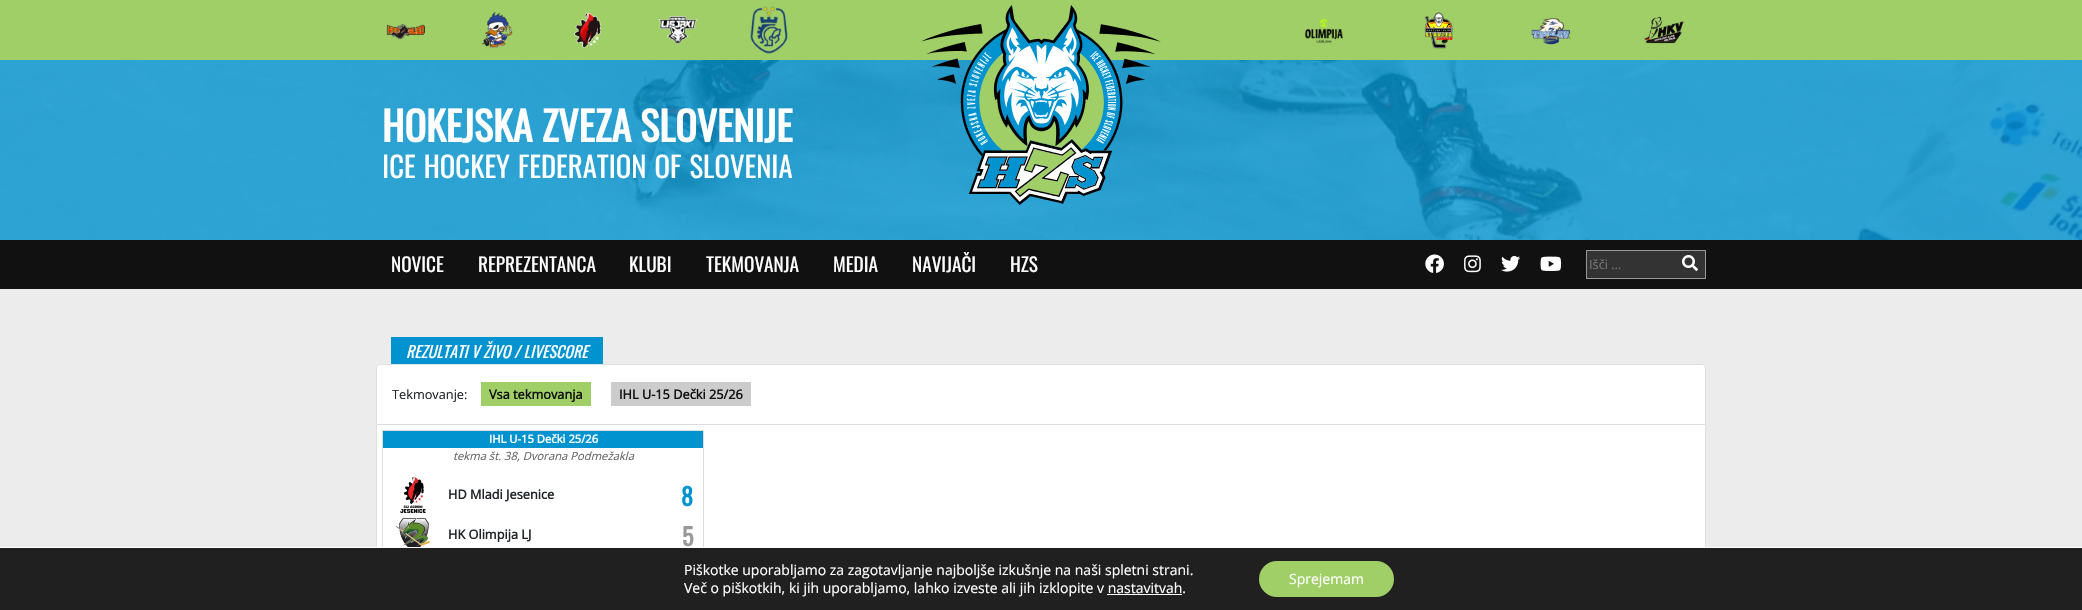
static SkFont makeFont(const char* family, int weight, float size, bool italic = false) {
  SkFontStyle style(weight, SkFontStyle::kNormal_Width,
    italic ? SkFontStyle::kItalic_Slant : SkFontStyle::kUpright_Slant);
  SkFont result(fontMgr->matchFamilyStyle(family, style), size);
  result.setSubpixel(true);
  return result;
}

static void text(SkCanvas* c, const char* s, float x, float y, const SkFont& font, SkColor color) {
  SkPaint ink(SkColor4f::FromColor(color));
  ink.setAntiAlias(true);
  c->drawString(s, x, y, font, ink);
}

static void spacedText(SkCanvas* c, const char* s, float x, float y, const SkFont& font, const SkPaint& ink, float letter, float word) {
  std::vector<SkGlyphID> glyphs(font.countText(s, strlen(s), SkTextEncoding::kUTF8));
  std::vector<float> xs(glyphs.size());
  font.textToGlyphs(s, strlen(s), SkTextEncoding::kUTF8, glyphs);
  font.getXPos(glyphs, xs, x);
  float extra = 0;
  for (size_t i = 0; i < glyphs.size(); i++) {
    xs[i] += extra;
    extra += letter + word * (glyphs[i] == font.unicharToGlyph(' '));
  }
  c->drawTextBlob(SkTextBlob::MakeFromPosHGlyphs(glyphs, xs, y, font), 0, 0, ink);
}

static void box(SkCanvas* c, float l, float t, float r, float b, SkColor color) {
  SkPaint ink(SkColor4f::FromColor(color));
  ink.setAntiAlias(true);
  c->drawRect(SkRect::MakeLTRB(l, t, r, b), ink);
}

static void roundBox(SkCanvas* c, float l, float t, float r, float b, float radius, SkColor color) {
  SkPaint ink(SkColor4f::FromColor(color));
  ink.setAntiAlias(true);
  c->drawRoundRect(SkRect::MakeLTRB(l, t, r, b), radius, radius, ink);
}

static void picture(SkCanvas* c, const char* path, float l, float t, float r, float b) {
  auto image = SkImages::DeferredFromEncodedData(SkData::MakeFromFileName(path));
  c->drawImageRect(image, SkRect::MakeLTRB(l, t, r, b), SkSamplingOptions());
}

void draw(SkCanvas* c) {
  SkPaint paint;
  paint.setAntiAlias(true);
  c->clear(0xffececec);
  box(c, 0, 0, 2082, 60, 0xffa0cf67);
  picture(c, "img_01.png", 0, 60, 2082, 240);
  picture(c, "img_02.png", 921, 5, 1161, 205);
  picture(c, "img_03.png", 1304, 18, 1344, 44);
  picture(c, "img_04.png", 1424, 12, 1453, 49);
  picture(c, "img_05.png", 1531, 18, 1571, 45);
  picture(c, "img_06.png", 1644, 16, 1684, 44);
  picture(c, "img_07.png", 386, 24, 426, 40);
  picture(c, "img_08.png", 481, 12, 513, 48);
  picture(c, "img_09.png", 574, 12, 602, 48);
  picture(c, "img_10.png", 658, 16, 698, 44);
  picture(c, "img_11.png", 750, 6, 788, 54);
  SkFont face1 = makeFont("Oswald", 700, 40);
  text(c, "HOKEJSKA ZVEZA SLOVENIJE", 382, 142, face1, 0xffffffff);
  SkFont face2 = makeFont("Oswald", 400, 28.75f);
  paint.setColor(0xffffffff);
  spacedText(c, "ICE HOCKEY FEDERATION OF SLOVENIA", 382, 178, face2, paint, 0, 1.5f);
  box(c, 0, 240, 2082, 289, 0xff111111);
  SkFont face3 = makeFont("Oswald", 400, 19.25f);
  text(c, "NOVICE", 391, 272, face3, 0xffffffff);
  text(c, "REPREZENTANCA", 478, 272, face3, 0xffffffff);
  text(c, "KLUBI", 629, 272, face3, 0xffffffff);
  text(c, "TEKMOVANJA", 706, 272, face3, 0xffffffff);
  text(c, "MEDIA", 833, 272, face3, 0xffffffff);
  text(c, "NAVIJAČI", 912, 272, face3, 0xffffffff);
  text(c, "HZS", 1010, 272, face3, 0xffffffff);
  picture(c, "img_12.png", 1425, 254, 1444, 273);
  picture(c, "img_13.png", 1464, 255, 1481, 273);
  picture(c, "img_14.png", 1501, 256, 1520, 272);
  picture(c, "img_15.png", 1540, 256, 1562, 271);
  paint.setColor(0xff333333);
  c->drawRect(SkRect::MakeLTRB(1586.5f, 250.5f, 1705.5f, 278.5f), paint);
  paint.setStyle(SkPaint::kStroke_Style);
  paint.setStrokeWidth(1);
  paint.setColor(0xff999999);
  c->drawRect(SkRect::MakeLTRB(1586.5f, 250.5f, 1705.5f, 278.5f), paint);
  SkFont face4 = makeFont("Open Sans", 400, 12.75f);
  text(c, "Išči …", 1589, 269, face4, 0xff757575);
  picture(c, "img_16.png", 1682, 255, 1698, 271);
  box(c, 391, 337, 603, 364, 0xff0093d0);
  SkFont face5 = makeFont("Oswald", 400, 16, true);
  text(c, "REZULTATI V ŽIVO / LIVESCORE", 406, 358, face5, 0xffffffff);
  roundBox(c, 376, 364, 1706, 596, 4, 0xffffffff);
  paint.setColor(0x1f000000);
  c->drawRoundRect(SkRect::MakeLTRB(376.5f, 364.5f, 1705.5f, 595.5f), 3.5f, 3.5f, paint);
  box(c, 377, 424, 1705, 425, 0xffdddddd);
  text(c, "Tekmovanje:", 392, 399, face4, 0xff212529);
  box(c, 481, 382, 591, 406, 0xffa0cf67);
  SkFont face6 = makeFont("Open Sans", 700, 12.75f);
  text(c, "Vsa tekmovanja", 489, 399, face6, 0xff111111);
  box(c, 611, 382, 751, 406, 0xffcccccc);
  text(c, "IHL U-15 Dečki 25/26", 619, 399, face6, 0xff111111);
  paint.setColor(0xffdddddd);
  c->drawRect(SkRect::MakeLTRB(382.5f, 430.5f, 703.5f, 589.5f), paint);
  box(c, 383, 431, 703, 448, 0xff0093d0);
  SkFont face7 = makeFont("Open Sans", 700, 11.25f);
  text(c, "IHL U-15 Dečki 25/26", 489, 443, face7, 0xffffffff);
  SkFont face8 = makeFont("Open Sans", 400, 11.25f, true);
  text(c, "tekma št. 38, Dvorana Podmežakla", 453, 460, face8, 0xff666666);
  picture(c, "img_17.png", 400, 477, 426, 513);
  text(c, "HD Mladi Jesenice", 448, 499, face6, 0xff212529);
  SkFont face9 = makeFont("Oswald", 700, 24);
  text(c, "8", 681, 506, face9, 0xff0093d0);
  picture(c, "img_18.png", 396, 518, 430, 547);
  text(c, "HK Olimpija LJ", 448, 539, face6, 0xff212529);
  text(c, "5", 682, 546, face9, 0xff999999);
  box(c, 0, 548, 2082, 610, 0xff202020);
  box(c, 0, 547, 2082, 548, 0xffffffff);
  SkFont face10 = makeFont("Open Sans", 400, 14);
  text(c, "Piškotke uporabljamo za zagotavljanje najboljše izkušnje na naši spletni strani.", 684, 575, face10, 0xffffffff);
  text(c, "Več o piškotkih, ki jih uporabljamo, lahko izveste ali jih izklopite v nastavitvah.", 684, 593, face10, 0xffffffff);
  box(c, 1107, 594, 1182, 595, 0xffffffff);
  roundBox(c, 1259, 561, 1394, 597, 18, 0xffa0cf67);
  text(c, "Sprejemam", 1289, 584, face10, 0xffffffff);
}
